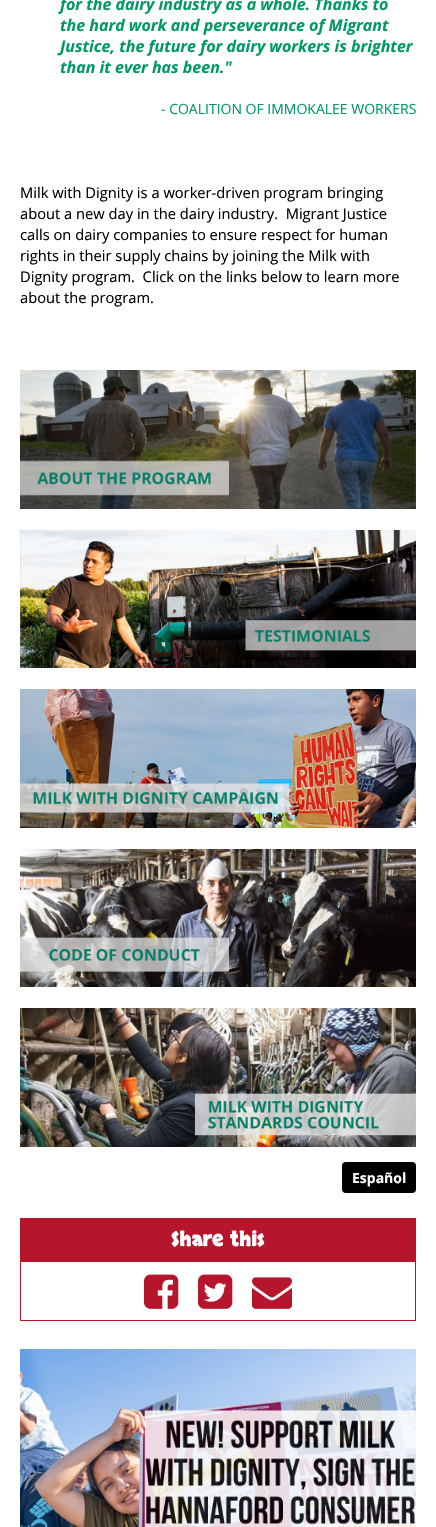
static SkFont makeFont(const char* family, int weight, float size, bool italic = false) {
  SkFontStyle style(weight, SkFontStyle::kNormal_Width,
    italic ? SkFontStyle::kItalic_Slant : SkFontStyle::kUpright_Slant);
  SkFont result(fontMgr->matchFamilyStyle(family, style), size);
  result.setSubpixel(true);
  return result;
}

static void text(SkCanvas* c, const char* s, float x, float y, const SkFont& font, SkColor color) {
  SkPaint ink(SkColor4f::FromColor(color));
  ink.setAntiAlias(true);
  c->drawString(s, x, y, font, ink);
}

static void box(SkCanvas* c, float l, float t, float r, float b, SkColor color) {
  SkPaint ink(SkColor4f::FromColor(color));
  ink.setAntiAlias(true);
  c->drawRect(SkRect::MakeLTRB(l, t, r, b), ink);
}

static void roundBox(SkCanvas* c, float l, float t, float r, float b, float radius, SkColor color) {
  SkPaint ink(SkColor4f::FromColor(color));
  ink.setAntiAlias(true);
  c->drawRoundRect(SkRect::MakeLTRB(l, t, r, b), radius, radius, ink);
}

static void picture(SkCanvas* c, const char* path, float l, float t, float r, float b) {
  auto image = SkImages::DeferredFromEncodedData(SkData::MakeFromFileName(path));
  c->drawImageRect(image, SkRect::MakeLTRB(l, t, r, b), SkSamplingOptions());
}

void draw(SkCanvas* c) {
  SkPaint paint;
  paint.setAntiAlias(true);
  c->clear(0xffffffff);
  SkFont face1 = makeFont("Open Sans", 700, 16, true);
  text(c, "for the dairy industry as a whole. Thanks to", 60, 10, face1, 0xff009966);
  text(c, "the hard work and perseverance of Migrant", 60, 31, face1, 0xff009966);
  text(c, "Justice, the future for dairy workers is brighter", 60, 52, face1, 0xff009966);
  text(c, "than it ever has been.\"", 60, 73, face1, 0xff009966);
  SkFont face2 = makeFont("Open Sans", 400, 14);
  text(c, "- COALITION OF IMMOKALEE WORKERS", 161, 114, face2, 0xff009966);
  SkFont face3 = makeFont("Open Sans", 400, 14.7f);
  text(c, "Milk with Dignity is a worker-driven program bringing", 20, 198, face3, 0xff000000);
  text(c, "about a new day in the dairy industry.  Migrant Justice", 20, 219, face3, 0xff000000);
  text(c, "calls on dairy companies to ensure respect for human", 20, 240, face3, 0xff000000);
  text(c, "rights in their supply chains by joining the Milk with", 20, 261, face3, 0xff000000);
  text(c, "Dignity program.  Click on the links below to learn more", 20, 282, face3, 0xff000000);
  text(c, "about the program.", 20, 303, face3, 0xff000000);
  picture(c, "img_01.png", 20, 370, 416, 509);
  picture(c, "img_02.png", 20, 530, 416, 668);
  picture(c, "img_03.png", 20, 689, 416, 828);
  picture(c, "img_04.png", 20, 849, 416, 987);
  picture(c, "img_05.png", 20, 1008, 416, 1147);
  roundBox(c, 342, 1162, 416, 1193, 4, 0xff000000);
  SkFont face4 = makeFont("Open Sans", 700, 14);
  text(c, "Español", 352, 1183, face4, 0xffffffff);
  box(c, 20, 1218, 416, 1261, 0xffb5162b);
  SkFont face5 = makeFont("Skranji", 700, 20);
  text(c, "Share this", 171, 1246, face5, 0xffffffff);
  paint.setStyle(SkPaint::kStroke_Style);
  paint.setStrokeWidth(1);
  paint.setColor(0xffb5162b);
  c->drawRect(SkRect::MakeLTRB(20.5f, 1261.5f, 415.5f, 1320.5f), paint);
  picture(c, "img_06.png", 144, 1274, 179, 1309);
  picture(c, "img_07.png", 198, 1274, 233, 1309);
  picture(c, "img_08.png", 252, 1277, 292, 1309);
  picture(c, "img_09.png", 20, 1349, 416, 1527);
}
